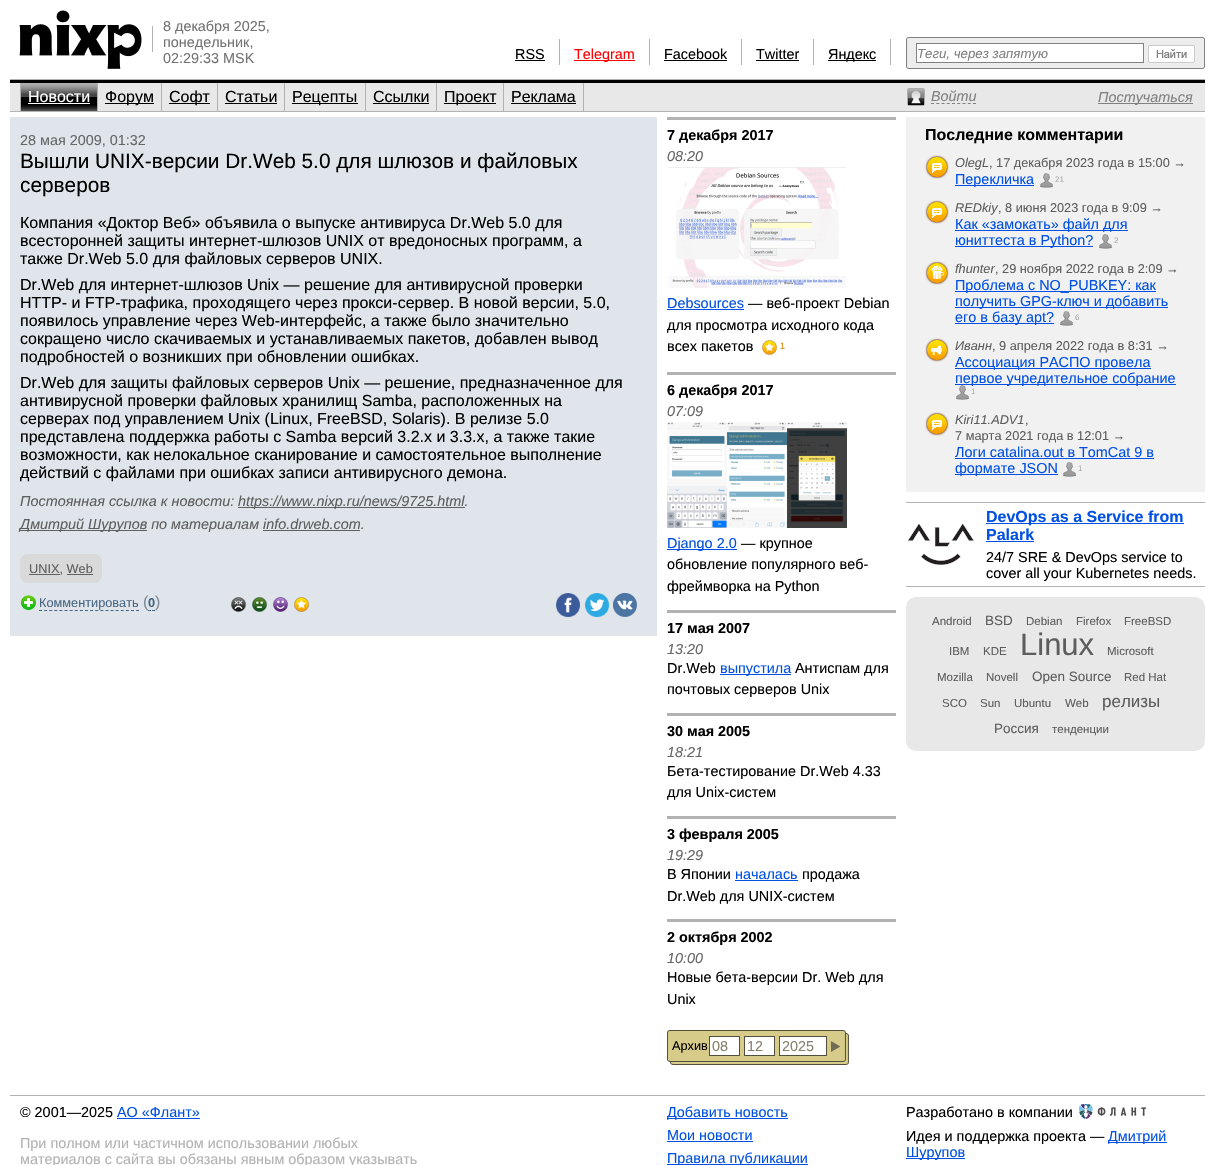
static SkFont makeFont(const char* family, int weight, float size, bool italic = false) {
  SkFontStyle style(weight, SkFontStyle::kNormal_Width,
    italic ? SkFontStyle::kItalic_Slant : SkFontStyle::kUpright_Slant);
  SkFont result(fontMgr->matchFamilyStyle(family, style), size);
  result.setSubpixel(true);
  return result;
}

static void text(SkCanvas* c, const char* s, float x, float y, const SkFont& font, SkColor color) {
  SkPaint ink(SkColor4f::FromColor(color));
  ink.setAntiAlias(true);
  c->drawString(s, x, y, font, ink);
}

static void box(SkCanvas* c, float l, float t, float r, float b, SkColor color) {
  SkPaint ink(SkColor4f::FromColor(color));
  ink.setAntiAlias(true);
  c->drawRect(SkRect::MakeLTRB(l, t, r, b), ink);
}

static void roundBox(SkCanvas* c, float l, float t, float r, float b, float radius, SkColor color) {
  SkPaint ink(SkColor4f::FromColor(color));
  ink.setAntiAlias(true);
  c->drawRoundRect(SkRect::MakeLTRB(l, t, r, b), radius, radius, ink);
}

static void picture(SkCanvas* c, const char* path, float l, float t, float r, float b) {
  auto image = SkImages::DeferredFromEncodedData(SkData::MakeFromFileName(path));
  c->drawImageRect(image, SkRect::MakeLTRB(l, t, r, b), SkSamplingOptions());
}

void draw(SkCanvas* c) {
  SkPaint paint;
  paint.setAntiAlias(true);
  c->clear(0xffffffff);
  box(c, 10, 79, 1205, 80, 0xffb2b2b2);
  picture(c, "img_01.png", 19, 10, 142, 69);
  box(c, 152, 26, 153, 52, 0xffb2b2b2);
  SkFont face1 = makeFont("Liberation Sans", 400, 14.4f);
  text(c, "8 декабря 2025,", 163, 31, face1, 0xff737373);
  text(c, "понедельник,", 163, 47, face1, 0xff737373);
  text(c, "02:29:33 MSK", 163, 63, face1, 0xff737373);
  text(c, "RSS", 515, 59, face1, 0xff000000);
  box(c, 515, 60, 545, 61, 0xff000000);
  box(c, 559, 39, 560, 65, 0xffb2b2b2);
  box(c, 574, 60, 635, 61, 0xffff0000);
  text(c, "Telegram", 574, 59, face1, 0xffff0000);
  box(c, 649, 39, 650, 65, 0xffb2b2b2);
  text(c, "Facebook", 664, 59, face1, 0xff000000);
  box(c, 664, 60, 727, 61, 0xff000000);
  box(c, 741, 39, 742, 65, 0xffb2b2b2);
  text(c, "Twitter", 756, 59, face1, 0xff000000);
  box(c, 756, 60, 799, 61, 0xff000000);
  box(c, 813, 39, 814, 65, 0xffb2b2b2);
  box(c, 828, 60, 876, 61, 0xff000000);
  text(c, "Яндекс", 828, 59, face1, 0xff000000);
  box(c, 890, 39, 891, 65, 0xffb2b2b2);
  picture(c, "img_02.png", 906, 37, 1142, 69);
  picture(c, "img_03.png", 1142, 37, 1205, 69);
  paint.setColor(0xffffffff);
  c->drawRect(SkRect::MakeLTRB(916.5f, 43.5f, 1143.5f, 62.5f), paint);
  paint.setStyle(SkPaint::kStroke_Style);
  paint.setStrokeWidth(1);
  paint.setColor(0xff818181);
  c->drawRect(SkRect::MakeLTRB(916.5f, 43.5f, 1143.5f, 62.5f), paint);
  SkFont face2 = makeFont("Liberation Sans", 400, 13.25f, true);
  text(c, "Теги, через запятую", 917, 58, face2, 0xff818181);
  picture(c, "img_04.png", 1148, 45, 1195, 63);
  box(c, 10, 83, 1205, 111, 0xffe8e8e8);
  box(c, 10, 80, 1205, 83, 0xff000000);
  box(c, 10, 111, 1205, 112, 0xffb2b2b2);
  box(c, 583, 83, 584, 111, 0xffb2b2b2);
  picture(c, "img_05.png", 21, 83, 97, 111);
  box(c, 20, 83, 21, 111, 0xffb2b2b2);
  SkFont face3 = makeFont("Liberation Sans", 400, 16);
  text(c, "Новости", 28, 102, face3, 0xffffffff);
  box(c, 28, 103, 90, 104, 0xffffffff);
  box(c, 97, 83, 98, 111, 0xffb2b2b2);
  box(c, 105, 103, 154, 104, 0xff000000);
  text(c, "Форум", 105, 102, face3, 0xff000000);
  box(c, 161, 83, 162, 111, 0xffb2b2b2);
  box(c, 169, 103, 210, 104, 0xff000000);
  text(c, "Софт", 169, 102, face3, 0xff000000);
  box(c, 217, 83, 218, 111, 0xffb2b2b2);
  text(c, "Статьи", 225, 102, face3, 0xff000000);
  box(c, 225, 103, 277, 104, 0xff000000);
  box(c, 284, 83, 285, 111, 0xffb2b2b2);
  box(c, 292, 103, 358, 104, 0xff000000);
  text(c, "Рецепты", 292, 102, face3, 0xff000000);
  box(c, 365, 83, 366, 111, 0xffb2b2b2);
  text(c, "Ссылки", 373, 102, face3, 0xff000000);
  box(c, 373, 103, 429, 104, 0xff000000);
  box(c, 436, 83, 437, 111, 0xffb2b2b2);
  box(c, 444, 103, 496, 104, 0xff000000);
  text(c, "Проект", 444, 102, face3, 0xff000000);
  box(c, 503, 83, 504, 111, 0xffb2b2b2);
  text(c, "Реклама", 511, 102, face3, 0xff000000);
  box(c, 511, 103, 576, 104, 0xff000000);
  picture(c, "img_06.png", 907, 88, 925, 106);
  SkFont face4 = makeFont("Liberation Sans", 400, 14.4f, true);
  text(c, "Войти", 931, 101, face4, 0xff818181);
  paint.setPathEffect(SkDashPathEffect::Make({{3, 2.25f}}, 0));
  c->drawPath(SkPathBuilder().moveTo(931, 103.5f).lineTo(976, 103.5f).detach(), paint);
  paint.setPathEffect(nullptr);
  box(c, 1098, 103, 1193, 104, 0xff818181);
  text(c, "Постучаться", 1098, 102, face4, 0xff818181);
  box(c, 10, 117, 657, 636, 0xffe0e5eb);
  text(c, "28 мая 2009, 01:32", 20, 145, face1, 0xff666666);
  SkFont face5 = makeFont("Liberation Sans", 400, 20.8f);
  text(c, "Вышли UNIX-версии Dr.Web 5.0 для шлюзов и файловых", 20, 168, face5, 0xff000000);
  text(c, "серверов", 20, 192, face5, 0xff000000);
  text(c, "Компания «Доктор Веб» объявила о выпуске антивируса Dr.Web 5.0 для", 20, 228, face3, 0xff000000);
  text(c, "всесторонней защиты интернет-шлюзов UNIX от вредоносных программ, а", 20, 246, face3, 0xff000000);
  text(c, "также Dr.Web 5.0 для файловых серверов UNIX.", 20, 264, face3, 0xff000000);
  text(c, "Dr.Web для интернет-шлюзов Unix — решение для антивирусной проверки", 20, 290, face3, 0xff000000);
  text(c, "HTTP- и FTP-трафика, проходящего через прокси-cервер. В новой версии, 5.0,", 20, 308, face3, 0xff000000);
  text(c, "появилось управление через Web-интерфейс, а также было значительно", 20, 326, face3, 0xff000000);
  text(c, "сокращено число скачиваемых и устанавливаемых пакетов, добавлен вывод", 20, 344, face3, 0xff000000);
  text(c, "подробностей о возникших при обновлении ошибках.", 20, 362, face3, 0xff000000);
  text(c, "Dr.Web для защиты файловых серверов Unix — решение, предназначенное для", 20, 388, face3, 0xff000000);
  text(c, "антивирусной проверки файловых хранилищ Samba, расположенных на", 20, 406, face3, 0xff000000);
  text(c, "серверах под управлением Unix (Linux, FreeBSD, Solaris). В релизе 5.0", 20, 424, face3, 0xff000000);
  text(c, "представлена поддержка работы с Samba версий 3.2.x и 3.3.x, а также такие", 20, 442, face3, 0xff000000);
  text(c, "возможности, как нелокальное сканирование и самостоятельное выполнение", 20, 460, face3, 0xff000000);
  text(c, "действий с файлами при ошибках записи антивирусного демона.", 20, 478, face3, 0xff000000);
  text(c, "Постоянная ссылка к новости:", 20, 506, face4, 0xff5d5d5d);
  box(c, 238, 507, 465, 508, 0xff606060);
  text(c, "https://www.nixp.ru/news/9725.html.", 238, 506, face4, 0xff5d5d5d);
  box(c, 20, 530, 147, 531, 0xff606060);
  text(c, "Дмитрий Шурупов по материалам info.drweb.com.", 20, 529, face4, 0xff5d5d5d);
  box(c, 263, 530, 360, 531, 0xff606060);
  roundBox(c, 20, 554, 102, 583, 8, 0xffd9d9d9);
  box(c, 29, 574, 60, 575, 0xff606060);
  SkFont face6 = makeFont("Liberation Sans", 400, 12.75f);
  text(c, "UNIX, Web", 29, 573, face6, 0xff5d5d5d);
  box(c, 67, 574, 93, 575, 0xff606060);
  picture(c, "img_07.png", 21, 595, 36, 610);
  text(c, "Комментировать", 39, 607, face6, 0xff466582);
  paint.setColor(0xff466582);
  paint.setPathEffect(SkDashPathEffect::Make({{3, 2.11f}}, 0));
  c->drawPath(SkPathBuilder().moveTo(39, 610.5f).lineTo(139, 610.5f).detach(), paint);
  paint.setPathEffect(nullptr);
  text(c, "(", 143, 607, face3, 0xff7e8c99);
  SkFont face7 = makeFont("Liberation Sans", 700, 12.75f);
  text(c, "0", 148, 607, face7, 0xff466582);
  c->drawPath(SkPathBuilder().moveTo(148, 610.5f).lineTo(151, 610.5f).moveTo(152, 610.5f).lineTo(155, 610.5f).detach(), paint);
  text(c, ")", 155, 607, face3, 0xff7e8c99);
  picture(c, "img_08.png", 231, 597, 246, 612);
  picture(c, "img_09.png", 252, 597, 267, 612);
  picture(c, "img_10.png", 273, 597, 288, 612);
  picture(c, "img_11.png", 294, 597, 309, 612);
  picture(c, "img_12.png", 556, 593, 580, 617);
  picture(c, "img_13.png", 585, 593, 609, 617);
  picture(c, "img_14.png", 613, 593, 637, 617);
  box(c, 667, 117, 896, 120, 0xffb2b2b2);
  SkFont face8 = makeFont("Liberation Sans", 700, 14.4f);
  text(c, "7 декабря 2017", 667, 140, face8, 0xff000000);
  text(c, "08:20", 667, 161, face4, 0xff666666);
  picture(c, "img_15.png", 668, 167, 846, 288);
  text(c, "Debsources", 667, 308, face1, 0xff0050e3);
  box(c, 667, 309, 744, 310, 0xff0050e3);
  text(c, "— веб-проект Debian", 748, 308, face1, 0xff000000);
  text(c, "для просмотра исходного кода", 667, 330, face1, 0xff000000);
  text(c, "всех пакетов", 667, 351, face1, 0xff000000);
  picture(c, "img_16.png", 762, 340, 777, 355);
  SkFont face9 = makeFont("Liberation Sans", 400, 9);
  text(c, "1", 780, 349, face9, 0xffd28300);
  box(c, 667, 372, 896, 375, 0xffb2b2b2);
  text(c, "6 декабря 2017", 667, 395, face8, 0xff000000);
  text(c, "07:09", 667, 416, face4, 0xff666666);
  picture(c, "img_17.png", 667, 422, 847, 528);
  box(c, 667, 549, 737, 550, 0xff0050e3);
  text(c, "Django 2.0", 667, 548, face1, 0xff0050e3);
  text(c, "— крупное", 741, 548, face1, 0xff000000);
  text(c, "обновление популярного веб-", 667, 569, face1, 0xff000000);
  text(c, "фреймворка на Python", 667, 591, face1, 0xff000000);
  box(c, 667, 610, 896, 613, 0xffb2b2b2);
  text(c, "17 мая 2007", 667, 633, face8, 0xff000000);
  text(c, "13:20", 667, 654, face4, 0xff666666);
  text(c, "Dr.Web", 667, 673, face1, 0xff000000);
  box(c, 720, 674, 791, 675, 0xff0050e3);
  text(c, "выпустила", 720, 673, face1, 0xff0050e3);
  text(c, "Антиспам для", 795, 673, face1, 0xff000000);
  text(c, "почтовых серверов Unix", 667, 694, face1, 0xff000000);
  box(c, 667, 713, 896, 716, 0xffb2b2b2);
  text(c, "30 мая 2005", 667, 736, face8, 0xff000000);
  text(c, "18:21", 667, 757, face4, 0xff666666);
  text(c, "Бета-тестирование Dr.Web 4.33", 667, 776, face1, 0xff000000);
  text(c, "для Unix-систем", 667, 797, face1, 0xff000000);
  box(c, 667, 816, 896, 819, 0xffb2b2b2);
  text(c, "3 февраля 2005", 667, 839, face8, 0xff000000);
  text(c, "19:29", 667, 860, face4, 0xff666666);
  text(c, "В Японии", 667, 879, face1, 0xff000000);
  text(c, "началась", 735, 879, face1, 0xff0050e3);
  box(c, 735, 880, 798, 881, 0xff0050e3);
  text(c, "продажа", 802, 879, face1, 0xff000000);
  text(c, "Dr.Web для UNIX-систем", 667, 901, face1, 0xff000000);
  box(c, 667, 919, 896, 922, 0xffb2b2b2);
  text(c, "2 октября 2002", 667, 942, face8, 0xff000000);
  text(c, "10:00", 667, 963, face4, 0xff666666);
  text(c, "Новые бета-версии Dr. Web для", 667, 982, face1, 0xff000000);
  text(c, "Unix", 667, 1004, face1, 0xff000000);
  picture(c, "img_18.png", 667, 1030, 849, 1065);
  text(c, "Архив", 672, 1050, face6, 0xff000000);
  paint.setStyle(SkPaint::kFill_Style);
  paint.setColor(0xffffffff);
  c->drawRect(SkRect::MakeLTRB(709.5f, 1036.5f, 739.5f, 1055.5f), paint);
  paint.setStyle(SkPaint::kStroke_Style);
  paint.setColor(0xff524f3e);
  c->drawRect(SkRect::MakeLTRB(709.5f, 1036.5f, 739.5f, 1055.5f), paint);
  text(c, "08", 712, 1051, face1, 0xff85816a);
  paint.setStyle(SkPaint::kFill_Style);
  paint.setColor(0xffffffff);
  c->drawRect(SkRect::MakeLTRB(744.5f, 1036.5f, 774.5f, 1055.5f), paint);
  paint.setStyle(SkPaint::kStroke_Style);
  paint.setColor(0xff524f3e);
  c->drawRect(SkRect::MakeLTRB(744.5f, 1036.5f, 774.5f, 1055.5f), paint);
  text(c, "12", 747, 1051, face1, 0xff85816a);
  paint.setStyle(SkPaint::kFill_Style);
  paint.setColor(0xffffffff);
  c->drawRect(SkRect::MakeLTRB(779.5f, 1036.5f, 826.5f, 1055.5f), paint);
  paint.setStyle(SkPaint::kStroke_Style);
  paint.setColor(0xff524f3e);
  c->drawRect(SkRect::MakeLTRB(779.5f, 1036.5f, 826.5f, 1055.5f), paint);
  text(c, "2025", 782, 1051, face1, 0xff85816a);
  picture(c, "img_19.png", 831, 1041, 841, 1052);
  box(c, 906, 117, 1205, 492, 0xfff1f1f1);
  SkFont face10 = makeFont("Liberation Sans", 700, 16);
  text(c, "Последние комментарии", 925, 140, face10, 0xff000000);
  picture(c, "img_20.png", 925, 155, 949, 179);
  SkFont face11 = makeFont("Liberation Sans", 400, 12.75f, true);
  text(c, "OlegL", 955, 167, face11, 0xff5d5d5d);
  text(c, ", 17 декабря 2023 года в 15:00 →", 989, 167, face6, 0xff5d5d5d);
  box(c, 955, 185, 1034, 186, 0xff0050e3);
  text(c, "Перекличка", 955, 184, face1, 0xff0050e3);
  picture(c, "img_21.png", 1040, 173, 1053, 188);
  SkFont face12 = makeFont("Liberation Sans", 400, 8);
  text(c, "21", 1055, 182, face12, 0xffaaaaaa);
  picture(c, "img_20.png", 925, 200, 949, 224);
  text(c, "REDkiy", 955, 212, face11, 0xff5d5d5d);
  text(c, ", 8 июня 2023 года в 9:09 →", 998, 212, face6, 0xff5d5d5d);
  box(c, 955, 230, 1128, 231, 0xff0050e3);
  text(c, "Как «замокать» файл для", 955, 229, face1, 0xff0050e3);
  box(c, 955, 246, 1093, 247, 0xff0050e3);
  text(c, "юниттеста в Python?", 955, 245, face1, 0xff0050e3);
  picture(c, "img_21.png", 1099, 234, 1112, 249);
  text(c, "2", 1114, 243, face12, 0xffaaaaaa);
  picture(c, "img_22.png", 925, 261, 949, 285);
  text(c, "fhunter", 955, 273, face11, 0xff5d5d5d);
  text(c, ", 29 ноября 2022 года в 2:09 →", 995, 273, face6, 0xff5d5d5d);
  box(c, 955, 291, 1156, 292, 0xff0050e3);
  text(c, "Проблема с NO_PUBKEY: как", 955, 290, face1, 0xff0050e3);
  box(c, 955, 307, 1168, 308, 0xff0050e3);
  text(c, "получить GPG-ключ и добавить", 955, 306, face1, 0xff0050e3);
  box(c, 955, 323, 1054, 324, 0xff0050e3);
  text(c, "его в базу apt?", 955, 322, face1, 0xff0050e3);
  picture(c, "img_21.png", 1060, 311, 1073, 326);
  text(c, "6", 1075, 320, face12, 0xffaaaaaa);
  picture(c, "img_23.png", 925, 338, 949, 362);
  text(c, "Иванн", 955, 350, face11, 0xff5d5d5d);
  text(c, ", 9 апреля 2022 года в 8:31 →", 992, 350, face6, 0xff5d5d5d);
  box(c, 955, 368, 1151, 369, 0xff0050e3);
  text(c, "Ассоциация РАСПО провела", 955, 367, face1, 0xff0050e3);
  box(c, 955, 384, 1176, 385, 0xff0050e3);
  text(c, "первое учредительное собрание", 955, 383, face1, 0xff0050e3);
  picture(c, "img_21.png", 956, 385, 969, 400);
  text(c, "1", 971, 394, face12, 0xffaaaaaa);
  picture(c, "img_20.png", 925, 412, 949, 436);
  text(c, "Kiri11.ADV1", 955, 424, face11, 0xff5d5d5d);
  text(c, ",", 1025, 424, face6, 0xff5d5d5d);
  text(c, "7 марта 2021 года в 12:01 →", 955, 440, face6, 0xff5d5d5d);
  text(c, "Логи catalina.out в TomCat 9 в", 955, 457, face1, 0xff0050e3);
  box(c, 955, 458, 1154, 459, 0xff0050e3);
  box(c, 955, 474, 1058, 475, 0xff0050e3);
  text(c, "формате JSON", 955, 473, face1, 0xff0050e3);
  picture(c, "img_21.png", 1063, 462, 1076, 477);
  text(c, "1", 1078, 471, face12, 0xffaaaaaa);
  box(c, 906, 502, 1205, 503, 0xffb2b2b2);
  box(c, 906, 586, 1205, 587, 0xffb2b2b2);
  box(c, 986, 523, 1184, 524, 0xff0050e3);
  text(c, "DevOps as a Service from", 986, 522, face10, 0xff0050e3);
  picture(c, "img_24.png", 907, 523, 974, 565);
  text(c, "Palark", 986, 540, face10, 0xff0050e3);
  box(c, 986, 541, 1034, 542, 0xff0050e3);
  text(c, "24/7 SRE & DevOps service to", 986, 562, face1, 0xff000000);
  text(c, "cover all your Kubernetes needs.", 986, 578, face1, 0xff000000);
  roundBox(c, 906, 597, 1205, 751, 10, 0xffe8e8e8);
  SkFont face13 = makeFont("Liberation Sans", 400, 11.5f);
  text(c, "Android", 932, 625, face13, 0xff5d5d5d);
  SkFont face14 = makeFont("Liberation Sans", 400, 13.5f);
  text(c, "BSD", 985, 625, face14, 0xff5d5d5d);
  text(c, "Debian", 1026, 625, face13, 0xff5d5d5d);
  text(c, "Firefox", 1076, 625, face13, 0xff5d5d5d);
  text(c, "FreeBSD", 1124, 625, face13, 0xff5d5d5d);
  text(c, "IBM", 949, 655, face13, 0xff5d5d5d);
  text(c, "KDE", 983, 655, face13, 0xff5d5d5d);
  SkFont face15 = makeFont("Liberation Sans", 400, 31);
  text(c, "Linux", 1020, 655, face15, 0xff5d5d5d);
  text(c, "Microsoft", 1107, 655, face13, 0xff5d5d5d);
  text(c, "Mozilla", 937, 681, face13, 0xff5d5d5d);
  text(c, "Novell", 986, 681, face13, 0xff5d5d5d);
  text(c, "Open Source", 1032, 681, face14, 0xff5d5d5d);
  text(c, "Red Hat", 1124, 681, face13, 0xff5d5d5d);
  text(c, "SCO", 942, 707, face13, 0xff5d5d5d);
  text(c, "Sun", 980, 707, face13, 0xff5d5d5d);
  text(c, "Ubuntu", 1014, 707, face13, 0xff5d5d5d);
  text(c, "Web", 1065, 707, face13, 0xff5d5d5d);
  SkFont face16 = makeFont("Liberation Sans", 400, 17);
  text(c, "релизы", 1102, 707, face16, 0xff5d5d5d);
  text(c, "Россия", 994, 733, face14, 0xff5d5d5d);
  text(c, "тенденции", 1052, 733, face13, 0xff5d5d5d);
  box(c, 10, 1095, 1205, 1096, 0xffb2b2b2);
  text(c, "© 2001—2025", 20, 1117, face1, 0xff000000);
  text(c, "АО «Флант»", 117, 1117, face1, 0xff0050e3);
  box(c, 117, 1118, 200, 1119, 0xff0050e3);
  text(c, "При полном или частичном использовании любых", 20, 1148, face1, 0xffb2b2b2);
  text(c, "материалов с сайта вы обязаны явным образом указывать", 20, 1164, face1, 0xffb2b2b2);
  box(c, 667, 1118, 788, 1119, 0xff0050e3);
  text(c, "Добавить новость", 667, 1117, face1, 0xff0050e3);
  text(c, "Мои новости", 667, 1140, face1, 0xff0050e3);
  box(c, 667, 1141, 753, 1142, 0xff0050e3);
  box(c, 667, 1164, 808, 1165, 0xff0050e3);
  text(c, "Правила публикации", 667, 1163, face1, 0xff0050e3);
  text(c, "Разработано в компании", 906, 1117, face1, 0xff000000);
  picture(c, "img_25.png", 1079, 1104, 1146, 1119);
  text(c, "Идея и поддержка проекта —", 906, 1141, face1, 0xff000000);
  box(c, 1108, 1142, 1167, 1143, 0xff0050e3);
  text(c, "Дмитрий", 1108, 1141, face1, 0xff0050e3);
  box(c, 906, 1158, 965, 1159, 0xff0050e3);
  text(c, "Шурупов", 906, 1157, face1, 0xff0050e3);
}
